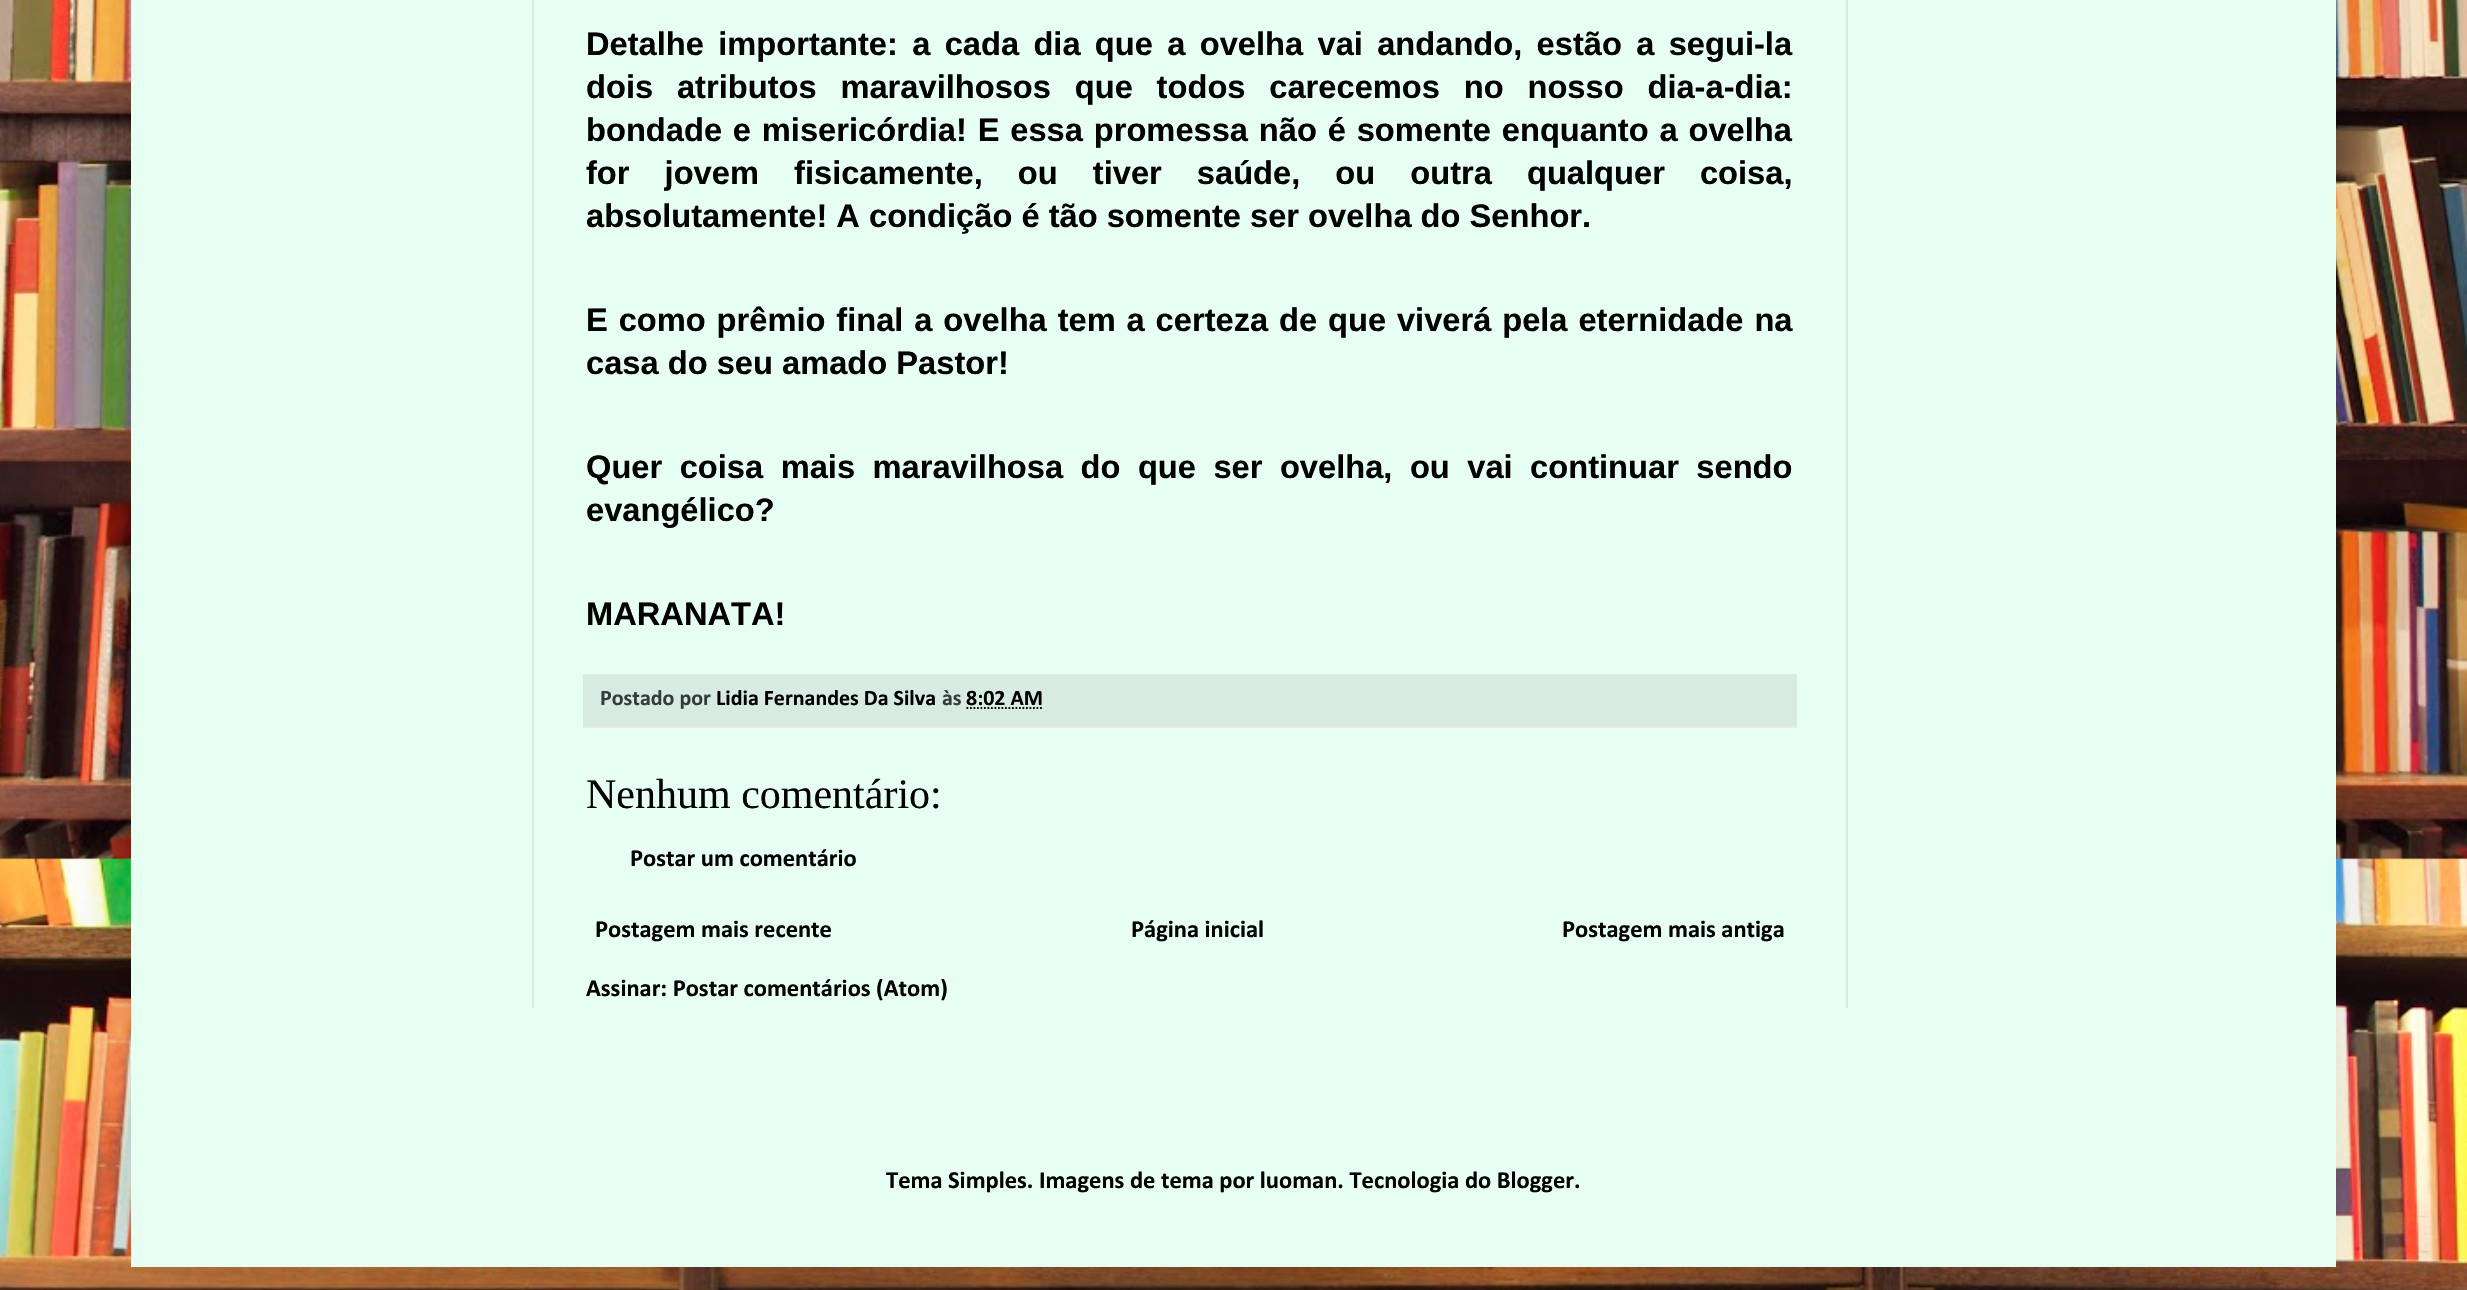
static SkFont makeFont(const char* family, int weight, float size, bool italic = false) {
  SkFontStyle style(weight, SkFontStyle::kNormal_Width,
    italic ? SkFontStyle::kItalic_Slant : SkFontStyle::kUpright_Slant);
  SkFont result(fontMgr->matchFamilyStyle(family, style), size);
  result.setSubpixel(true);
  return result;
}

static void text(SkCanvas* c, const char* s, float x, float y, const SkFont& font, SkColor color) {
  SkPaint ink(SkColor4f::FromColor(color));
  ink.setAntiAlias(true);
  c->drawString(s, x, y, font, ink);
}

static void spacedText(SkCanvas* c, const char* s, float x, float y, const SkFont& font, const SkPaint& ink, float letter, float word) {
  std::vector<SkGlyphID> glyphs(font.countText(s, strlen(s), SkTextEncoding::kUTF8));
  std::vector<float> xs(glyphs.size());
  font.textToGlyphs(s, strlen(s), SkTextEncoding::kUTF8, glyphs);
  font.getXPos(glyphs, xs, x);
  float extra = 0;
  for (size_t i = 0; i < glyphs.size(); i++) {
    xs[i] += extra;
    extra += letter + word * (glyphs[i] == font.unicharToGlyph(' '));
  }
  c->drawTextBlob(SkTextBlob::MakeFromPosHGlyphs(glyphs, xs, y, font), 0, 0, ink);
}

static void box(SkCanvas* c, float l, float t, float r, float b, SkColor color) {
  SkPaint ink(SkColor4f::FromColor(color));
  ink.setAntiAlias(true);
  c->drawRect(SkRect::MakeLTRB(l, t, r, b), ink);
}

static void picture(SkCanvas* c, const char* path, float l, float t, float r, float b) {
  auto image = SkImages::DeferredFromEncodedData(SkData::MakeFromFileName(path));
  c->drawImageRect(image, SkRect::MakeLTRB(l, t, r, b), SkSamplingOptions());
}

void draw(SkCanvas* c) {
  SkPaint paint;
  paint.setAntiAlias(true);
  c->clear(0xffffffff);
  picture(c, "img_01.png", 0, 0, 2467, 1290);
  paint.setColor(0x26000000);
  paint.setMaskFilter(SkMaskFilter::MakeBlur(kNormal_SkBlurStyle, 35));
  c->drawRect(SkRect::MakeLTRB(131, -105, 2336, 1267), paint);
  paint.setMaskFilter(nullptr);
  box(c, 131, 0, 2336, 1267, 0xffe6fff2);
  box(c, 532, 0, 534, 1008, 0xffd7ebdd);
  SkFont face1 = makeFont("Liberation Sans", 700, 32.65f);
  paint.setColor(0xff000000);
  spacedText(c, "Detalhe importante: a cada dia que a ovelha vai andando, estão a segui-la", 586, 55, face1, paint, 0, 5.25f);
  spacedText(c, "dois atributos maravilhosos que todos carecemos no nosso dia-a-dia:", 586, 98, face1, paint, 0, 14.75f);
  spacedText(c, "bondade e misericórdia! E essa promessa não é somente enquanto a ovelha", 586, 141, face1, paint, 0, 1.75f);
  spacedText(c, "for jovem fisicamente, ou tiver saúde, ou outra qualquer coisa,", 586, 184, face1, paint, 0, 26);
  text(c, "absolutamente! A condição é tão somente ser ovelha do Senhor.", 586, 227, face1, 0xff000000);
  spacedText(c, "E como prêmio final a ovelha tem a certeza de que viverá pela eternidade na", 586, 331, face1, paint, 0, 1.8f);
  text(c, "casa do seu amado Pastor!", 586, 374, face1, 0xff000000);
  spacedText(c, "Quer coisa mais maravilhosa do que ser ovelha, ou vai continuar sendo", 586, 478, face1, paint, 0, 8.4f);
  text(c, "evangélico?", 586, 521, face1, 0xff000000);
  text(c, "MARANATA!", 586, 625, face1, 0xff000000);
  box(c, 583, 674, 1797, 726, 0xffd7ebe2);
  box(c, 583, 726, 1797, 728, 0xffeaeaea);
  SkFont face2 = makeFont("Calibri", 700, 22);
  text(c, "Postado por", 600, 705, face2, 0xff323c3a);
  text(c, "Lidia Fernandes Da Silva", 716, 705, face2, 0xff000000);
  text(c, "às", 942, 705, face2, 0xff323c3a);
  text(c, "8:02 AM", 966, 705, face2, 0xff000000);
  paint.setStyle(SkPaint::kStroke_Style);
  paint.setStrokeWidth(1.8f);
  paint.setPathEffect(SkDashPathEffect::Make({{1.75f, 1.75f}}, 0));
  c->drawPath(SkPathBuilder().moveTo(966.5f, 708).lineTo(1043.5f, 708).detach(), paint);
  paint.setPathEffect(nullptr);
  SkFont face3 = makeFont("Liberation Serif", 400, 42);
  text(c, "Nenhum comentário:", 586, 808, face3, 0xff000000);
  SkFont face4 = makeFont("Calibri", 700, 24.5f);
  text(c, "Postar um comentário", 630, 866, face4, 0xff000000);
  text(c, "Postagem mais recente", 595, 937, face4, 0xff000000);
  text(c, "Página inicial", 1131, 937, face4, 0xff000000);
  text(c, "Postagem mais antiga", 1562, 937, face4, 0xff000000);
  text(c, "Assinar: Postar comentários (Atom)", 586, 996, face4, 0xff000000);
  box(c, 1846, 0, 1848, 1008, 0xffd7ebdd);
  text(c, "Tema Simples. Imagens de tema por luoman. Tecnologia do Blogger.", 886, 1188, face4, 0xff000000);
}
